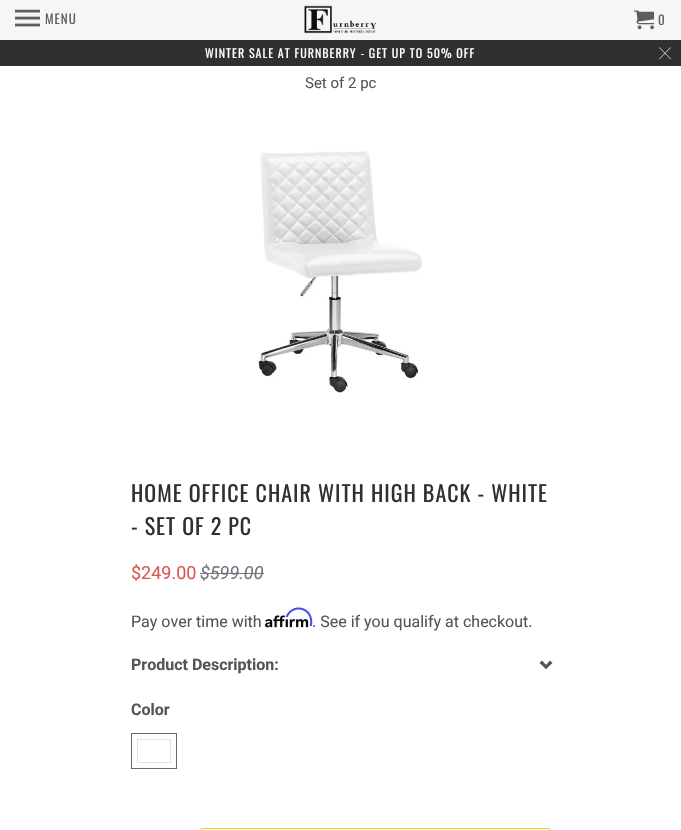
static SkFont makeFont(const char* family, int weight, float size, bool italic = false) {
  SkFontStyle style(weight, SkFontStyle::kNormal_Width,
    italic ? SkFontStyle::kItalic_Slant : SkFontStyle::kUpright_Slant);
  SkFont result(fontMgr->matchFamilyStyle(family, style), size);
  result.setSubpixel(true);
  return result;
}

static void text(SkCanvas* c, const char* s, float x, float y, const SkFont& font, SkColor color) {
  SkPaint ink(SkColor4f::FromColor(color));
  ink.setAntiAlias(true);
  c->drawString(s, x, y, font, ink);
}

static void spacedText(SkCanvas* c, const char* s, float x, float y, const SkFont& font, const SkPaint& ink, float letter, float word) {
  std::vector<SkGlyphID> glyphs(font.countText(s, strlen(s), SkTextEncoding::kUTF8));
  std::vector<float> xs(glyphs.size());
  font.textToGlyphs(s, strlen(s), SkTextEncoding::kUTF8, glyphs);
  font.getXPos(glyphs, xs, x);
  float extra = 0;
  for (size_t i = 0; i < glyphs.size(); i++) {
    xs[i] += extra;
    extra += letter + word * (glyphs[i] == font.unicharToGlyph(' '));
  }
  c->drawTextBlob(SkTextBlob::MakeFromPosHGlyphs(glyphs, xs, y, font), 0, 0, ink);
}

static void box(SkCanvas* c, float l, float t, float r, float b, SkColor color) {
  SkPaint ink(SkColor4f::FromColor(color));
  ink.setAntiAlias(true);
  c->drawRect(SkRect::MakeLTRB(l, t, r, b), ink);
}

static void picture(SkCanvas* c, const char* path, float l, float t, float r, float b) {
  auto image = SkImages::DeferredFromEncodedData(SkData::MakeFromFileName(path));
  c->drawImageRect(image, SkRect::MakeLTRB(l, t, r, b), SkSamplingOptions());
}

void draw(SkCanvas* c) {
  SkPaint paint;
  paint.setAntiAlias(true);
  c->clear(0xffffffff);
  box(c, 0, 0, 681, 40, 0xfff6f6f6);
  picture(c, "img_01.png", 15, 9, 40, 27);
  SkFont face1 = makeFont("Oswald", 400, 13);
  paint.setColor(0xff5e5e5e);
  spacedText(c, "MENU", 45, 24, face1, paint, 1, 0);
  picture(c, "img_02.png", 304, 5, 377, 34);
  picture(c, "img_03.png", 634, 10, 654, 30);
  spacedText(c, "0", 658, 25, face1, paint, 1, 0);
  box(c, 0, 40, 681, 66, 0xff303030);
  SkFont face2 = makeFont("Oswald", 400, 12);
  paint.setColor(0xffffffff);
  spacedText(c, "WINTER SALE AT FURNBERRY - GET UP TO 50% OFF", 205, 58, face2, paint, 1, 0);
  picture(c, "img_04.png", 659, 47, 671, 60);
  SkFont face3 = makeFont("Roboto", 400, 15);
  text(c, "Set of 2 pc", 305, 88, face3, 0xff555555);
  picture(c, "img_05.png", 258, 150, 422, 393);
  SkFont face4 = makeFont("Oswald", 400, 22);
  paint.setColor(0xff303030);
  spacedText(c, "HOME OFFICE CHAIR WITH HIGH BACK - WHITE", 131, 502, face4, paint, 1, 0);
  spacedText(c, "- SET OF 2 PC", 131, 535, face4, paint, 1, 0);
  SkFont face5 = makeFont("Roboto", 400, 18);
  text(c, "$249.00", 131, 579, face5, 0xffdc5454);
  SkFont face6 = makeFont("Roboto", 400, 18, true);
  text(c, "$599.00", 200, 579, face6, 0xff6e757c);
  box(c, 200, 573, 264, 574, 0xff6e757c);
  SkFont face7 = makeFont("Roboto", 400, 16);
  text(c, "Pay over time with", 131, 627, face7, 0xff555555);
  picture(c, "img_07.png", 265, 615, 309, 628);
  picture(c, "img_06.png", 285, 607, 313, 627);
  text(c, ". See if you qualify at checkout.", 312, 627, face7, 0xff555555);
  SkFont face8 = makeFont("Roboto", 700, 16);
  text(c, "Product Description:", 131, 670, face8, 0xff555555);
  paint.setColor(0xff555555);
  c->drawPath(SkPathBuilder().moveTo(546, 669).lineTo(539.5f, 663).lineTo(542, 660.5f).lineTo(548, 667).close().detach(), paint);
  c->drawPath(SkPathBuilder().moveTo(546, 669).lineTo(544, 667).lineTo(550, 660.5f).lineTo(552.5f, 663).close().detach(), paint);
  text(c, "Color", 131, 715, face8, 0xff555555);
  paint.setStyle(SkPaint::kStroke_Style);
  paint.setStrokeWidth(1);
  paint.setColor(0xff666666);
  c->drawRect(SkRect::MakeLTRB(131.5f, 733.5f, 176.5f, 768.5f), paint);
  paint.setColor(0xffe2e2e2);
  c->drawRect(SkRect::MakeLTRB(137.5f, 739.5f, 170.5f, 762.5f), paint);
  paint.setColor(0xfff0c417);
  c->drawRoundRect(SkRect::MakeLTRB(199.5f, 828.5f, 550.5f, 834.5f), 3.5f, 3.5f, paint);
}
